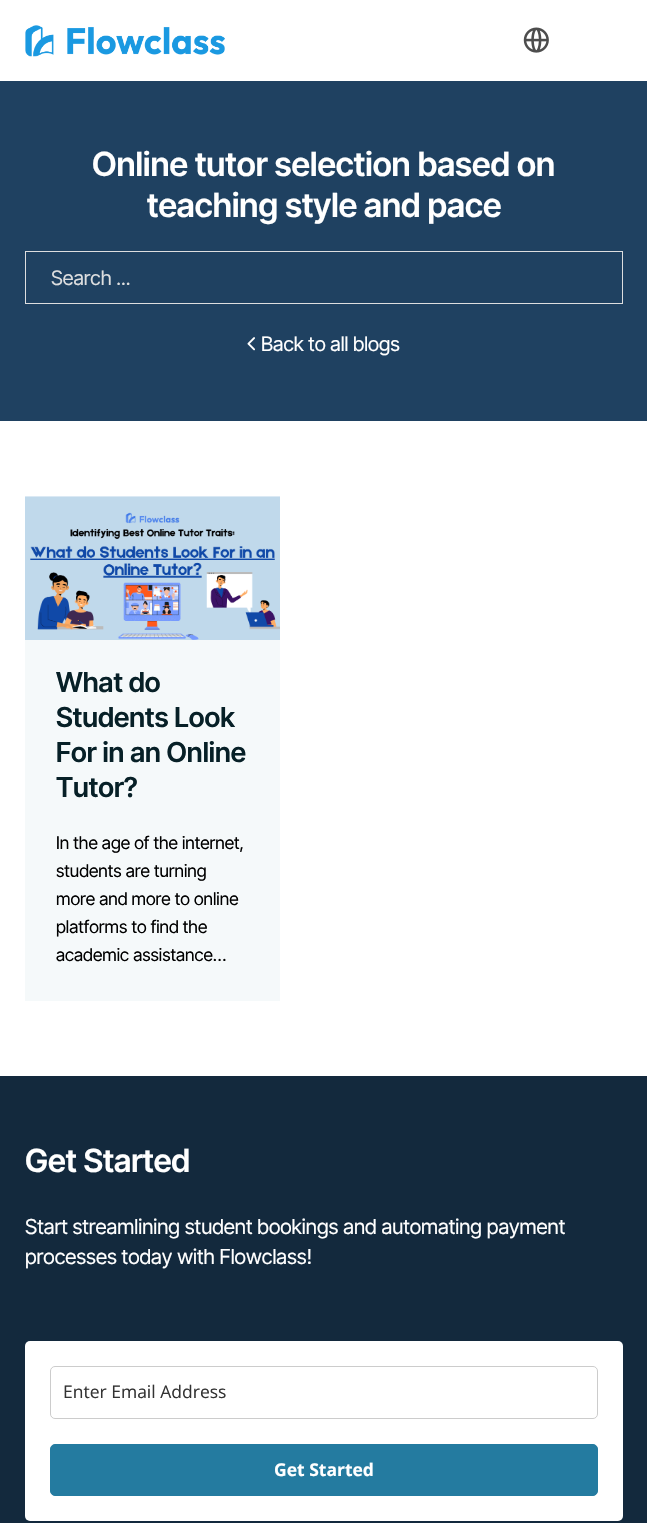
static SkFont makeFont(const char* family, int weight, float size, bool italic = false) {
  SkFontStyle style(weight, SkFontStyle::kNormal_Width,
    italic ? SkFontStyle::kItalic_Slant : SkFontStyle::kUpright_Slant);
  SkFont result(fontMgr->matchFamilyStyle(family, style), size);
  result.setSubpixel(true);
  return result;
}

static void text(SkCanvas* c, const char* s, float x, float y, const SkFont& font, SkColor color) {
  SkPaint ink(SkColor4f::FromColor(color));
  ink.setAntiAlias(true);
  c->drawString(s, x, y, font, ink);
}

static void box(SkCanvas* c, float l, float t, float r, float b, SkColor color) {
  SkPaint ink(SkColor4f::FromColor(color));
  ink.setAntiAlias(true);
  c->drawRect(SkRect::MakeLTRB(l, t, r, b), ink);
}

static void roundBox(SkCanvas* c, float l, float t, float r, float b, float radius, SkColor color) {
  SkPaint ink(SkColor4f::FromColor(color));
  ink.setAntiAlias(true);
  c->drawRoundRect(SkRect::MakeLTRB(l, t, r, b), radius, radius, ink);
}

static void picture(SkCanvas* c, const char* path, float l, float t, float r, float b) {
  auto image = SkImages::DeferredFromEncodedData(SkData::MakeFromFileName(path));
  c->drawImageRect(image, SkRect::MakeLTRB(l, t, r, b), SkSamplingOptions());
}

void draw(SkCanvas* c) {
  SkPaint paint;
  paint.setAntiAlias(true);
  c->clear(0xffffffff);
  picture(c, "img_01.png", 25, 25, 225, 57);
  picture(c, "img_02.png", 523, 27, 549, 53);
  box(c, 0, 81, 647, 421, 0xff1f4161);
  SkFont face1 = makeFont("Inter Tight", 600, 33.25f);
  text(c, "Online tutor selection based on", 92, 176, face1, 0xffffffff);
  text(c, "teaching style and pace", 147, 217, face1, 0xffffffff);
  paint.setStyle(SkPaint::kStroke_Style);
  paint.setStrokeWidth(1);
  paint.setColor(0xffdddedf);
  c->drawRect(SkRect::MakeLTRB(25.5f, 251.5f, 622.5f, 303.5f), paint);
  SkFont face2 = makeFont("Inter Tight", 400, 20);
  text(c, "Search ...", 51, 285, face2, 0xffdddedf);
  picture(c, "img_03.png", 247, 337, 255, 351);
  text(c, "Back to all blogs", 261, 351, face2, 0xffffffff);
  picture(c, "img_04.png", 25, 496, 280, 640);
  box(c, 25, 640, 280, 1001, 0xfff5f9fa);
  SkFont face3 = makeFont("Inter Tight", 600, 27.5f);
  text(c, "What do", 56, 692, face3, 0xff072027);
  text(c, "Students Look", 56, 727, face3, 0xff072027);
  text(c, "For in an Online", 56, 762, face3, 0xff072027);
  text(c, "Tutor?", 56, 797, face3, 0xff072027);
  SkFont face4 = makeFont("Inter Tight", 400, 17.5f);
  text(c, "In the age of the internet,", 56, 849, face4, 0xff000000);
  text(c, "students are turning", 56, 877, face4, 0xff000000);
  text(c, "more and more to online", 56, 905, face4, 0xff000000);
  text(c, "platforms to find the", 56, 933, face4, 0xff000000);
  text(c, "academic assistance…", 56, 961, face4, 0xff000000);
  box(c, 0, 1076, 647, 1523, 0xff13293d);
  SkFont face5 = makeFont("Inter Tight", 600, 32);
  text(c, "Get Started", 25, 1172, face5, 0xffffffff);
  SkFont face6 = makeFont("Inter Tight", 400, 20.65f);
  text(c, "Start streamlining student bookings and automating payment", 25, 1234, face6, 0xffffffff);
  text(c, "processes today with Flowclass!", 25, 1264, face6, 0xffffffff);
  roundBox(c, 25, 1341, 623, 1521, 5, 0xffffffff);
  paint.setColor(0xffcccccc);
  c->drawRoundRect(SkRect::MakeLTRB(50.5f, 1366.5f, 597.5f, 1418.5f), 4.5f, 4.5f, paint);
  SkFont face7 = makeFont("Open Sans", 400, 17.5f);
  text(c, "Enter Email Address", 63, 1398, face7, 0xff333333);
  paint.setStyle(SkPaint::kFill_Style);
  paint.setColor(0xff247ba0);
  c->drawRoundRect(SkRect::MakeLTRB(50.5f, 1444.5f, 597.5f, 1495.5f), 4.5f, 4.5f, paint);
  paint.setStyle(SkPaint::kStroke_Style);
  c->drawRoundRect(SkRect::MakeLTRB(50.5f, 1444.5f, 597.5f, 1495.5f), 4.5f, 4.5f, paint);
  SkFont face8 = makeFont("Open Sans", 700, 17.5f);
  text(c, "Get Started", 274, 1476, face8, 0xffffffff);
}
